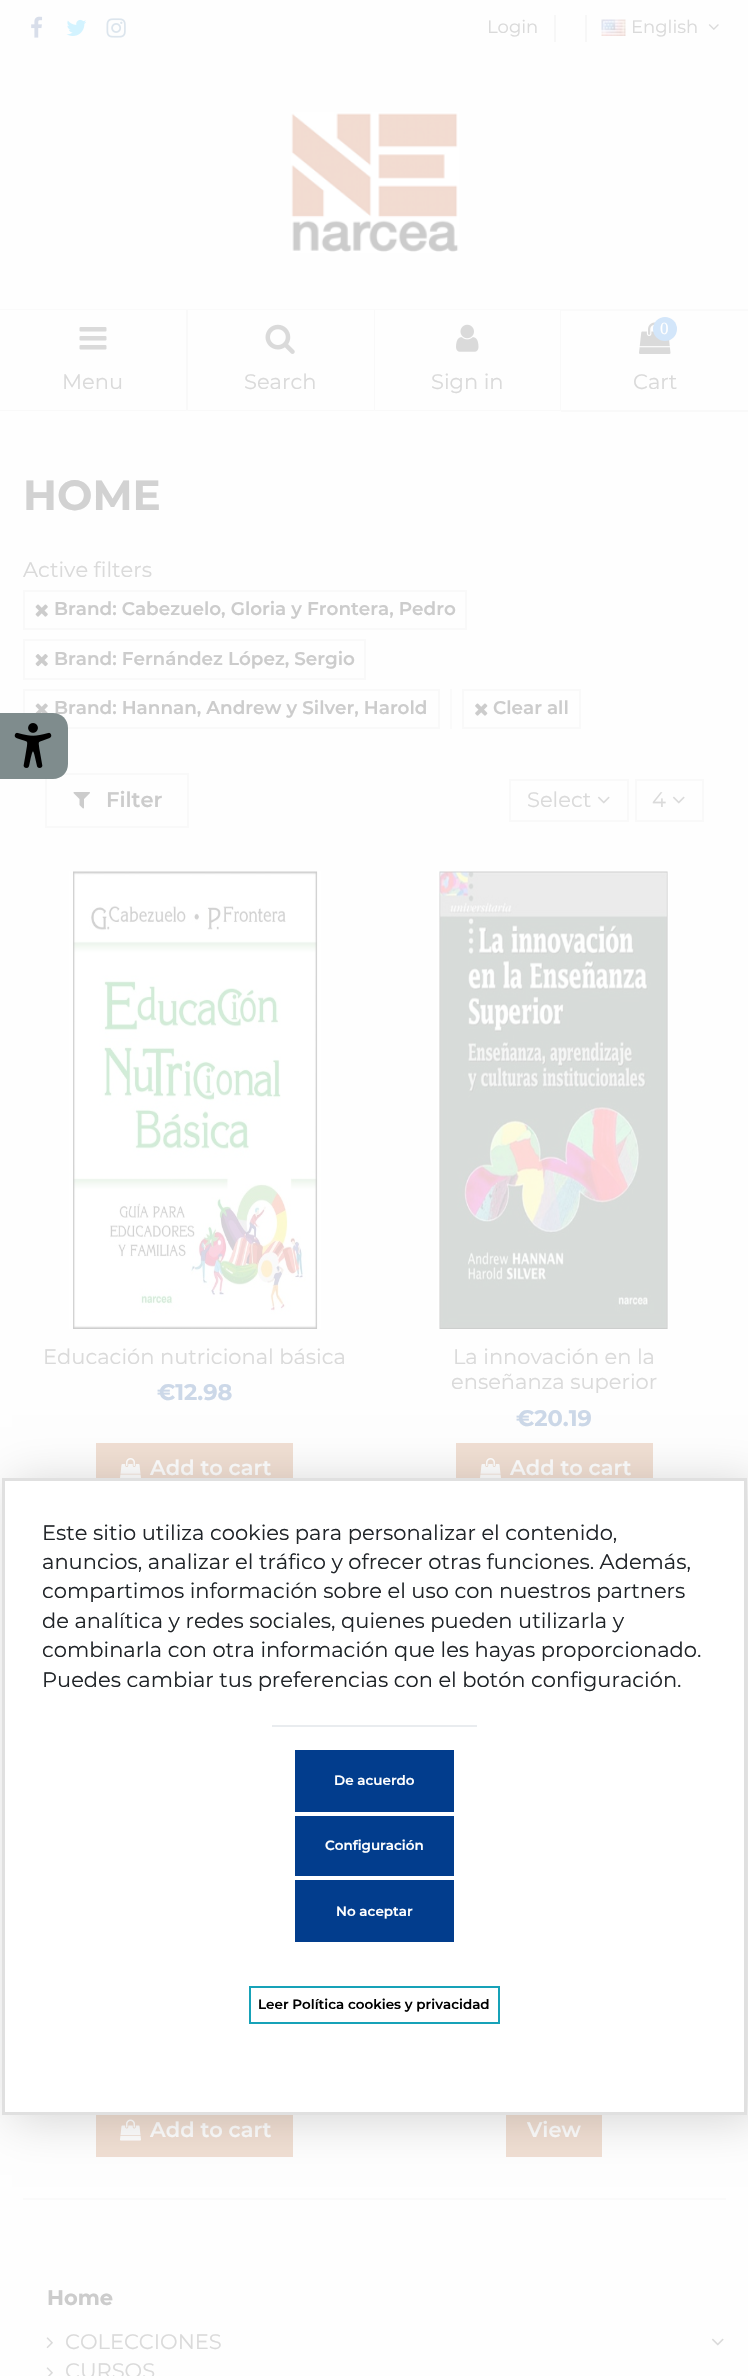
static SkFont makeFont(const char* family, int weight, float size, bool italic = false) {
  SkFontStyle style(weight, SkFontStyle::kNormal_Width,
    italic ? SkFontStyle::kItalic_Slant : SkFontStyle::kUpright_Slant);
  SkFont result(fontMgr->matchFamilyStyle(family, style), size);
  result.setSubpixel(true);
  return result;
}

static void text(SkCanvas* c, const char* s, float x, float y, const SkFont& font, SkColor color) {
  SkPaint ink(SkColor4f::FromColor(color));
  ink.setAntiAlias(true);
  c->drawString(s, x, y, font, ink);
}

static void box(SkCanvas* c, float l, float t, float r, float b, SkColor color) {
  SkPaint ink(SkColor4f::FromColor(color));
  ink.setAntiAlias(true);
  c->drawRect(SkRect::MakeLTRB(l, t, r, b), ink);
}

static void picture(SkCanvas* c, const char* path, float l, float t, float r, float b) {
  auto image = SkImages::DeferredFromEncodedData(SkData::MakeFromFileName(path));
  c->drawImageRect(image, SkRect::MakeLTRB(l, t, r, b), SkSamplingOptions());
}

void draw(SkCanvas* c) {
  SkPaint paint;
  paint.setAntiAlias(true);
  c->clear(0xfffefefe);
  picture(c, "img_01.png", 31, 16, 43, 38);
  picture(c, "img_02.png", 66, 19, 87, 36);
  picture(c, "img_03.png", 106, 18, 126, 38);
  SkFont face1 = makeFont("Montserrat", 100, 18);
  text(c, "Login", 487, 33, face1, 0xffdadada);
  box(c, 554, 15, 556, 42, 0xfff7f7f7);
  box(c, 585, 15, 587, 42, 0xfff7f7f7);
  picture(c, "img_04.png", 601, 19, 626, 36);
  text(c, "English", 631, 33, face1, 0xffdadada);
  picture(c, "img_05.png", 708, 24, 719, 30);
  picture(c, "img_06.png", 291, 112, 459, 253);
  paint.setColor(0xfffafafa);
  c->drawPath(SkPathBuilder().moveTo(0, 309).lineTo(188, 309).lineTo(186, 310).lineTo(0, 310).close().detach(), paint);
  paint.setColor(0x1cd0d0d0);
  c->drawPath(SkPathBuilder().moveTo(188, 309).lineTo(188, 411).lineTo(186, 410).lineTo(186, 310).close().detach(), paint);
  c->drawPath(SkPathBuilder().moveTo(188, 411).lineTo(0, 411).lineTo(0, 410).lineTo(186, 410).close().detach(), paint);
  picture(c, "img_07.png", 79, 327, 107, 350);
  SkFont face2 = makeFont("Montserrat", 100, 21);
  text(c, "Menu", 62, 389, face2, 0xffdadada);
  paint.setColor(0xfffafafa);
  c->drawPath(SkPathBuilder().moveTo(188, 309).lineTo(375, 309).lineTo(374, 310).lineTo(188, 310).close().detach(), paint);
  paint.setColor(0x1cd0d0d0);
  c->drawPath(SkPathBuilder().moveTo(375, 309).lineTo(375, 411).lineTo(374, 410).lineTo(374, 310).close().detach(), paint);
  c->drawPath(SkPathBuilder().moveTo(375, 411).lineTo(188, 411).lineTo(188, 410).lineTo(374, 410).close().detach(), paint);
  picture(c, "img_08.png", 265, 324, 295, 354);
  text(c, "Search", 244, 389, face2, 0xffdadada);
  paint.setColor(0xfffafafa);
  c->drawPath(SkPathBuilder().moveTo(375, 309).lineTo(561, 309).lineTo(560, 310).lineTo(375, 310).close().detach(), paint);
  paint.setColor(0x1cd0d0d0);
  c->drawPath(SkPathBuilder().moveTo(561, 309).lineTo(561, 411).lineTo(560, 410).lineTo(560, 310).close().detach(), paint);
  c->drawPath(SkPathBuilder().moveTo(561, 411).lineTo(375, 411).lineTo(375, 410).lineTo(560, 410).close().detach(), paint);
  picture(c, "img_09.png", 456, 324, 479, 352);
  text(c, "Sign in", 431, 389, face2, 0xffdadada);
  box(c, 561, 309, 748, 311, 0xfffafafa);
  box(c, 561, 410, 748, 412, 0x1cd0d0d0);
  picture(c, "img_10.png", 639, 322, 671, 354);
  paint.setColor(0xffd3e6fa);
  c->drawCircle(665, 329, 12, paint);
  SkFont face3 = makeFont("Liberation Serif", 400, 17);
  text(c, "0", 660, 334, face3, 0xffffffff);
  text(c, "Cart", 633, 389, face2, 0xffdadada);
  SkFont face4 = makeFont("Montserrat", 700, 42);
  text(c, "HOME", 23, 510, face4, 0xffd2d2d2);
  text(c, "Active filters", 23, 577, face2, 0xffdadada);
  paint.setStyle(SkPaint::kStroke_Style);
  paint.setStrokeWidth(2);
  paint.setColor(0xfff9f9f9);
  c->drawRect(SkRect::MakeLTRB(24, 591, 466, 629), paint);
  picture(c, "img_11.png", 35, 604, 48, 617);
  SkFont face5 = makeFont("Montserrat", 600, 18.4f);
  text(c, "Brand: Cabezuelo, Gloria y Frontera, Pedro", 54, 615, face5, 0xffcccccc);
  c->drawRect(SkRect::MakeLTRB(24, 640, 365, 679), paint);
  picture(c, "img_12.png", 35, 654, 48, 667);
  text(c, "Brand: Fernández López, Sergio", 54, 665, face5, 0xffcccccc);
  c->drawRect(SkRect::MakeLTRB(24, 690, 439, 728), paint);
  picture(c, "img_13.png", 35, 703, 48, 713);
  text(c, "Brand: Hannan, Andrew y Silver, Harold", 54, 714, face5, 0xffcccccc);
  box(c, 450, 689, 452, 729, 0xfffafafa);
  c->drawRect(SkRect::MakeLTRB(463, 690, 580, 728), paint);
  picture(c, "img_14.png", 475, 703, 488, 716);
  text(c, "Clear all", 493, 714, face5, 0xffcccccc);
  c->drawRect(SkRect::MakeLTRB(46, 774, 188, 827), paint);
  picture(c, "img_15.png", 73, 792, 90, 809);
  SkFont face6 = makeFont("Montserrat", 600, 21);
  text(c, "Filter", 106, 807, face6, 0xffcccccc);
  c->drawRect(SkRect::MakeLTRB(510, 780, 628, 821), paint);
  text(c, "Select", 527, 807, face2, 0xffdadada);
  picture(c, "img_16.png", 597, 796, 610, 804);
  c->drawRect(SkRect::MakeLTRB(636, 780, 703, 821), paint);
  text(c, "4", 652, 807, face2, 0xffdadada);
  picture(c, "img_16.png", 672, 796, 685, 804);
  picture(c, "img_17.png", 69, 871, 321, 1329);
  text(c, "Educación nutricional básica", 43, 1364, face2, 0xffdadada);
  SkFont face7 = makeFont("Montserrat", 700, 22.5f);
  text(c, "€12.98", 157, 1400, face7, 0xffccd8e8);
  box(c, 96, 1443, 293, 1478, 0xfff1dfd3);
  picture(c, "img_18.png", 120, 1458, 141, 1478);
  text(c, "Add to cart", 150, 1475, face6, 0xffffffff);
  picture(c, "img_19.png", 437, 871, 669, 1329);
  text(c, "La innovación en la", 453, 1364, face2, 0xffdadada);
  text(c, "enseñanza superior", 451, 1389, face2, 0xffdadada);
  text(c, "€20.19", 516, 1426, face7, 0xffccd8e8);
  box(c, 456, 1443, 653, 1478, 0xfff1dfd3);
  picture(c, "img_18.png", 480, 1458, 501, 1478);
  text(c, "Add to cart", 510, 1475, face6, 0xffffffff);
  box(c, 96, 2115, 293, 2157, 0xfff1dfd3);
  picture(c, "img_20.png", 120, 2119, 141, 2141);
  text(c, "Add to cart", 150, 2137, face6, 0xffffffff);
  box(c, 506, 2115, 602, 2157, 0xfff1dfd3);
  text(c, "View", 527, 2137, face6, 0xffffffff);
  box(c, 23, 2198, 726, 2200, 0xfffafafa);
  SkFont face8 = makeFont("Montserrat", 700, 21);
  text(c, "Home", 47, 2305, face8, 0xffcccccc);
  picture(c, "img_21.png", 46, 2337, 53, 2349);
  text(c, "COLECCIONES", 65, 2349, face2, 0xffdadada);
  picture(c, "img_16.png", 711, 2338, 724, 2346);
  picture(c, "img_22.png", 46, 2367, 53, 2376);
  text(c, "CURSOS", 65, 2378, face2, 0xffdadada);
  paint.setStyle(SkPaint::kFill_Style);
  paint.setColor(0xff7f8c8d);
  c->drawPath(SkPathBuilder().moveTo(0, 713).lineTo(53, 713).cubicTo(61.5f, 713, 68, 719.5f, 68, 728).lineTo(68, 764).cubicTo(68, 772.5f, 61.5f, 779, 53, 779).lineTo(0, 779).close().detach(), paint);
  picture(c, "img_23.png", 14, 723, 52, 768);
  paint.setColor(0x29000000);
  paint.setMaskFilter(SkMaskFilter::MakeBlur(kNormal_SkBlurStyle, 22.5f));
  c->drawRect(SkRect::MakeLTRB(12, 1482, 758, 2120), paint);
  paint.setMaskFilter(nullptr);
  paint.setColor(0xffffffff);
  c->drawRect(SkRect::MakeLTRB(3.5f, 1479.5f, 745.5f, 2113.5f), paint);
  paint.setStyle(SkPaint::kStroke_Style);
  paint.setStrokeWidth(3);
  paint.setColor(0xffe0e0e0);
  c->drawRect(SkRect::MakeLTRB(3.5f, 1479.5f, 745.5f, 2113.5f), paint);
  text(c, "Este sitio utiliza cookies para personalizar el contenido,", 42, 1540, face2, 0xff212529);
  text(c, "anuncios, analizar el tráfico y ofrecer otras funciones. Además,", 42, 1569, face2, 0xff212529);
  text(c, "compartimos información sobre el uso con nuestros partners", 42, 1598, face2, 0xff212529);
  text(c, "de analítica y redes sociales, quienes pueden utilizarla y", 42, 1628, face2, 0xff212529);
  text(c, "combinarla con otra información que les hayas proporcionado.", 42, 1657, face2, 0xff212529);
  text(c, "Puedes cambiar tus preferencias con el botón configuración.", 42, 1687, face2, 0xff212529);
  box(c, 272, 1725, 477, 1727, 0xffe9ecef);
  box(c, 295, 1750, 454, 1812, 0xff023d8d);
  SkFont face9 = makeFont("Montserrat", 600, 13.5f);
  text(c, "De acuerdo", 334, 1785, face9, 0xffffffff);
  box(c, 295, 1816, 454, 1876, 0xff023d8d);
  text(c, "Configuración", 325, 1850, face9, 0xffffffff);
  box(c, 295, 1880, 454, 1942, 0xff023d8d);
  text(c, "No aceptar", 336, 1916, face9, 0xffffffff);
  paint.setStrokeWidth(2);
  paint.setColor(0xff17a2b8);
  c->drawRect(SkRect::MakeLTRB(250, 1987, 499, 2023), paint);
  text(c, "Leer Política cookies y privacidad", 258, 2009, face9, 0xff000000);
}
